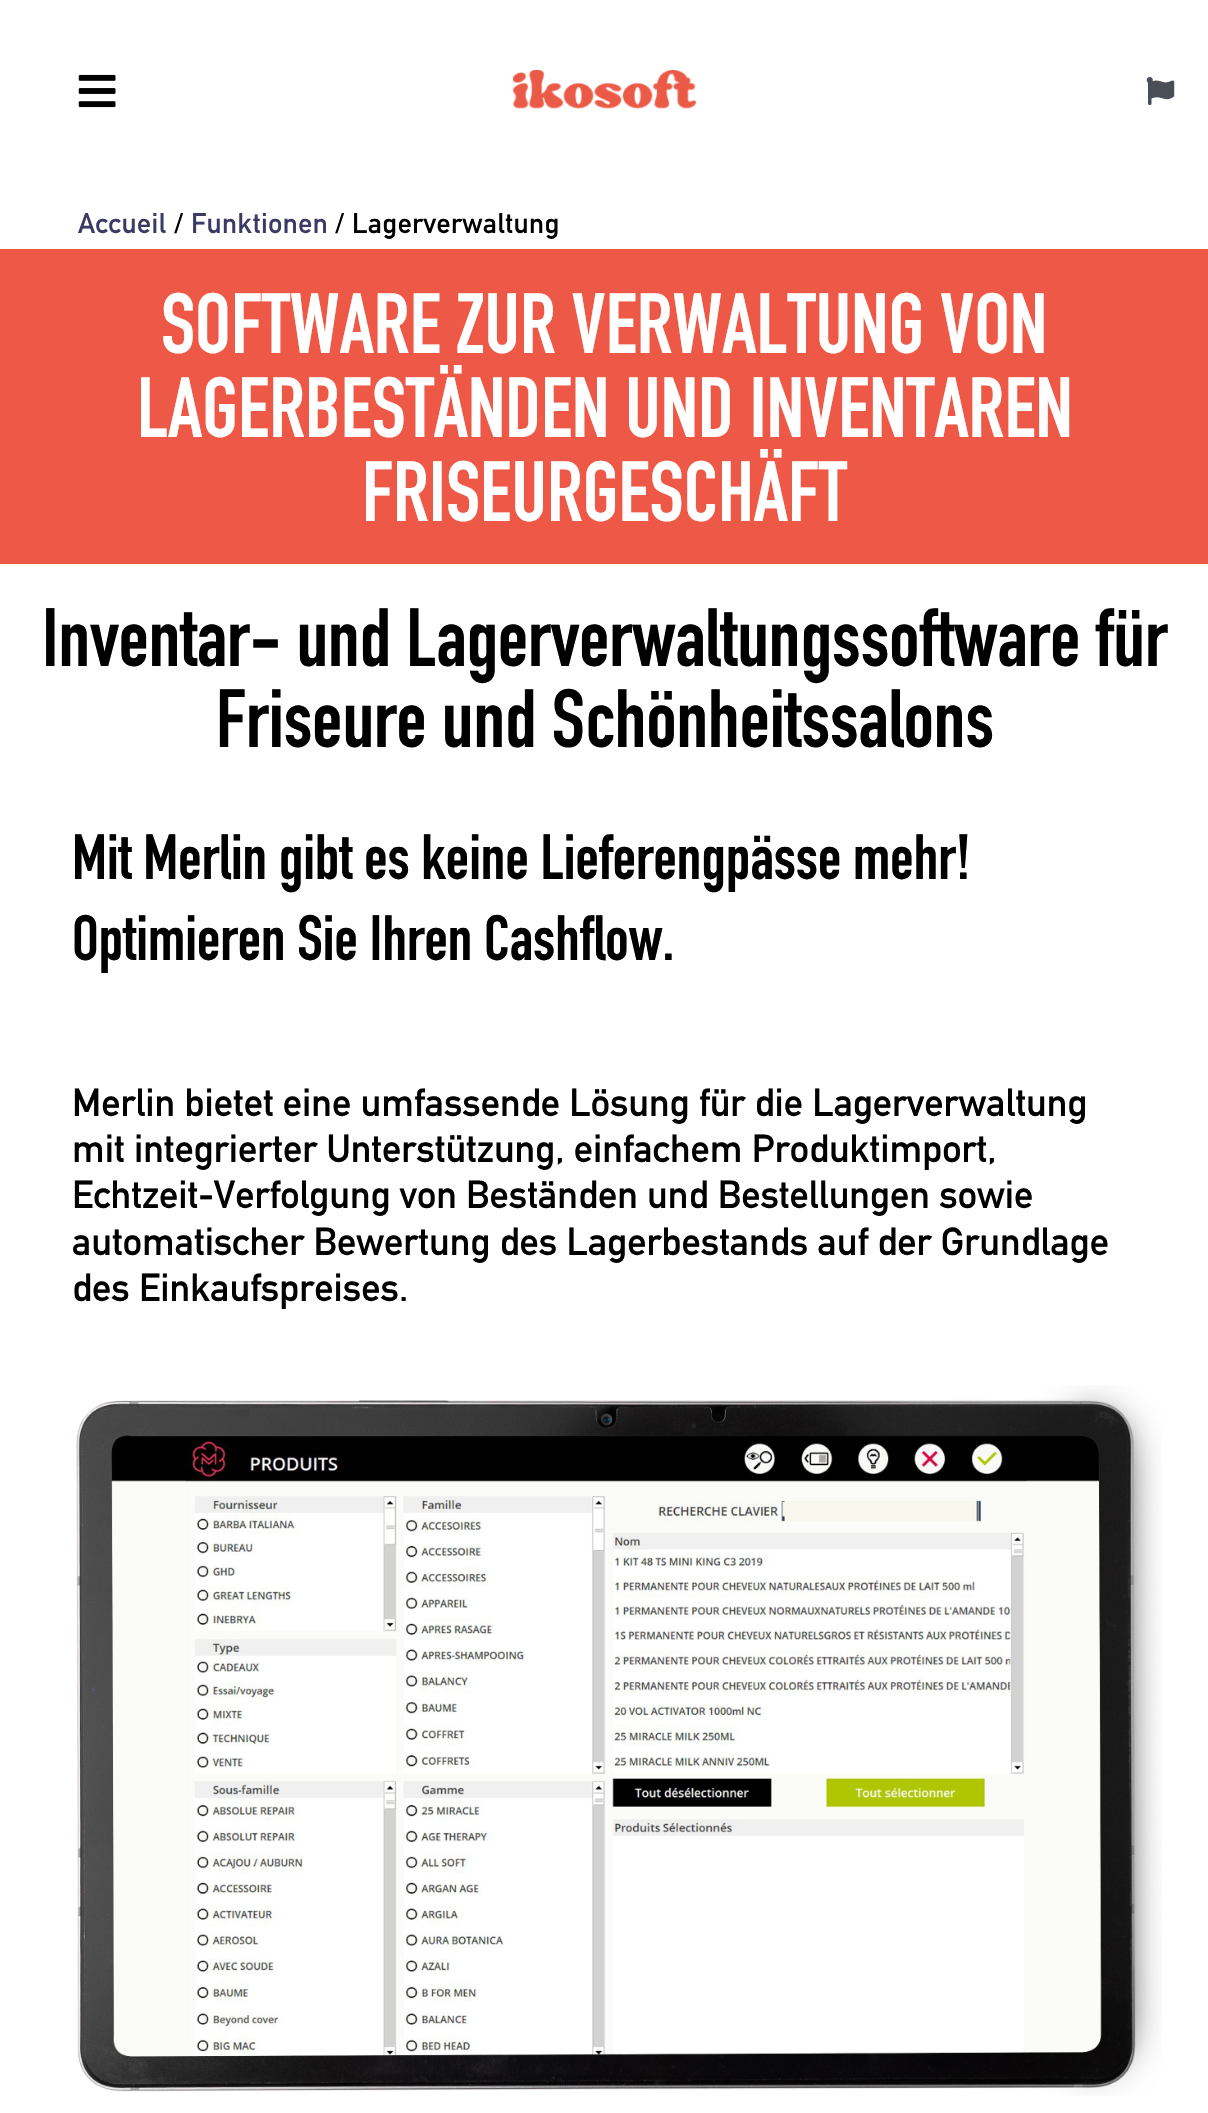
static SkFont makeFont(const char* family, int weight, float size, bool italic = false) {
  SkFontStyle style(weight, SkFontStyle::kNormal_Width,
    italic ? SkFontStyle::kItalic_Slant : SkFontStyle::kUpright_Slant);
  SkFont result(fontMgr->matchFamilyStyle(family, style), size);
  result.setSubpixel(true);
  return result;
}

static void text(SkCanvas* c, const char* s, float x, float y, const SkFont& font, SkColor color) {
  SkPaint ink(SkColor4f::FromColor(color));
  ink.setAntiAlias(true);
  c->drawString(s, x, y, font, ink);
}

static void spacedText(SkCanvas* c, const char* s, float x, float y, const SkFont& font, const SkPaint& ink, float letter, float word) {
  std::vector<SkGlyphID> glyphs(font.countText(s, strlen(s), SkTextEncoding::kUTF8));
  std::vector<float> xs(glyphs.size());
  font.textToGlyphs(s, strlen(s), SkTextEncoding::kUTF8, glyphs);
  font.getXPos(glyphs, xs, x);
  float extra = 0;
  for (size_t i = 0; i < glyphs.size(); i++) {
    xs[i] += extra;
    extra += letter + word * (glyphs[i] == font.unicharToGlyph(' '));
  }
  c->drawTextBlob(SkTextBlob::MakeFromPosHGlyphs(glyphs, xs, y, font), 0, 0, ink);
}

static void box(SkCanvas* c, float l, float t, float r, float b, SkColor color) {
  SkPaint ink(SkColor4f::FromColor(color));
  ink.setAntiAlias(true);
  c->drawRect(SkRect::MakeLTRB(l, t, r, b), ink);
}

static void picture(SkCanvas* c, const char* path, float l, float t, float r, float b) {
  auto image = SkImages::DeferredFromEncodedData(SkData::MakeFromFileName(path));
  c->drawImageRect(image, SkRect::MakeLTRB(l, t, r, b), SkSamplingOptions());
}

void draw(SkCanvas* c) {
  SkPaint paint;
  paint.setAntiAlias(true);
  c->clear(0xffffffff);
  picture(c, "img_01.png", 78, 74, 116, 108);
  picture(c, "img_02.png", 512, 70, 697, 109);
  picture(c, "img_03.png", 1146, 77, 1175, 105);
  SkFont face1 = makeFont("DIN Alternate", 700, 28);
  paint.setColor(0xff3b3a64);
  spacedText(c, "Accueil", 78, 233, face1, paint, 0.5f, 0);
  paint.setColor(0xff000000);
  spacedText(c, "/", 174, 233, face1, paint, 0.5f, 0);
  paint.setColor(0xff3b3a64);
  spacedText(c, "Funktionen", 191, 233, face1, paint, 0.5f, 0);
  paint.setColor(0xff000000);
  spacedText(c, "/ Lagerverwaltung", 335, 233, face1, paint, 0.5f, 0);
  box(c, 0, 249, 1208, 564, 0xffed5946);
  SkFont face2 = makeFont("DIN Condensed", 700, 84);
  text(c, "SOFTWARE ZUR VERWALTUNG VON", 161, 353, face2, 0xffffffff);
  text(c, "LAGERBESTÄNDEN UND INVENTAREN", 137, 437, face2, 0xffffffff);
  text(c, "FRISEURGESCHÄFT", 362, 521, face2, 0xffffffff);
  SkFont face3 = makeFont("DIN Condensed", 700, 81.25f);
  text(c, "Inventar- und Lagerverwaltungssoftware für", 42, 666, face3, 0xff000000);
  text(c, "Friseure und Schönheitssalons", 216, 747, face3, 0xff000000);
  SkFont face4 = makeFont("DIN Condensed", 700, 63);
  text(c, "Mit Merlin gibt es keine Lieferengpässe mehr!", 72, 879, face4, 0xff000000);
  text(c, "Optimieren Sie Ihren Cashflow.", 72, 960, face4, 0xff000000);
  SkFont face5 = makeFont("DIN Alternate", 700, 38.5f);
  text(c, "Merlin bietet eine umfassende Lösung für die Lagerverwaltung", 72, 1116, face5, 0xff000000);
  text(c, "mit integrierter Unterstützung, einfachem Produktimport,", 72, 1162, face5, 0xff000000);
  text(c, "Echtzeit-Verfolgung von Beständen und Bestellungen sowie", 72, 1208, face5, 0xff000000);
  text(c, "automatischer Bewertung des Lagerbestands auf der Grundlage", 72, 1255, face5, 0xff000000);
  text(c, "des Einkaufspreises.", 72, 1301, face5, 0xff000000);
  picture(c, "img_04.png", 76, 1385, 1162, 2096);
}
